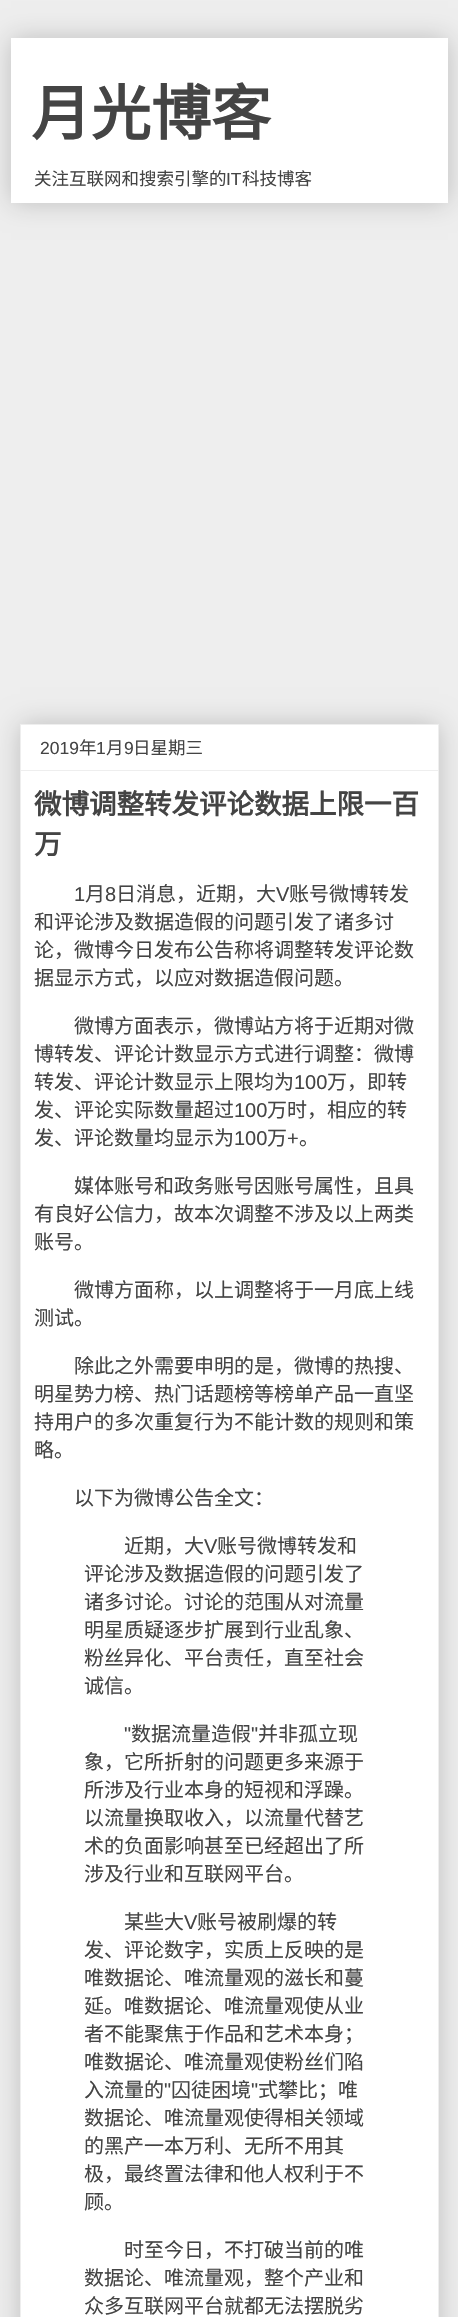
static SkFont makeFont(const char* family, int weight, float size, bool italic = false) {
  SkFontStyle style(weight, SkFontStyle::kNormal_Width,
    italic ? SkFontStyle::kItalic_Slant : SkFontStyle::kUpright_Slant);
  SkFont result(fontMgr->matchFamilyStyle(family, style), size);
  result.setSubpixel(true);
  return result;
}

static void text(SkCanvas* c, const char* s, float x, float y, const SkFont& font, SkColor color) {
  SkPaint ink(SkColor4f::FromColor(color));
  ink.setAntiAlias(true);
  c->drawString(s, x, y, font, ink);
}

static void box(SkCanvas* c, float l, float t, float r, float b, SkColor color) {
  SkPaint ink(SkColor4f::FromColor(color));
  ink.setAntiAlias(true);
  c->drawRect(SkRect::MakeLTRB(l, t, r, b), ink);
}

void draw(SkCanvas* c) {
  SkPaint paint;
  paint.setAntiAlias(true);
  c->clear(0xffeeeeee);
  paint.setColor(0x33000000);
  paint.setMaskFilter(SkMaskFilter::MakeBlur(kNormal_SkBlurStyle, 12.5f));
  c->drawRect(SkRect::MakeLTRB(11, 38, 448, 203), paint);
  paint.setMaskFilter(nullptr);
  box(c, 11, 38, 448, 203, 0xffffffff);
  SkFont face1 = makeFont("Noto Sans CJK SC", 700, 60);
  text(c, "月光博客", 31, 135, face1, 0xff444444);
  SkFont face2 = makeFont("Noto Sans CJK SC", 400, 17.5f);
  text(c, "关注互联网和搜索引擎的", 34, 185, face2, 0xff444444);
  SkFont face3 = makeFont("Liberation Sans", 400, 17.5f);
  text(c, "IT", 226, 185, face3, 0xff444444);
  text(c, "科技博客", 242, 185, face2, 0xff444444);
  paint.setMaskFilter(SkMaskFilter::MakeBlur(kNormal_SkBlurStyle, 12.5f));
  c->drawRect(SkRect::MakeLTRB(20, 724, 439, 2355), paint);
  paint.setMaskFilter(nullptr);
  paint.setColor(0xffffffff);
  c->drawRect(SkRect::MakeLTRB(20.5f, 724.5f, 438.5f, 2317.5f), paint);
  paint.setStyle(SkPaint::kStroke_Style);
  paint.setStrokeWidth(1);
  paint.setColor(0xffeeeeee);
  c->drawRect(SkRect::MakeLTRB(20.5f, 724.5f, 438.5f, 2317.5f), paint);
  text(c, "2019", 40, 754, face3, 0xff444444);
  text(c, "年", 79, 754, face2, 0xff444444);
  text(c, "1", 96, 754, face3, 0xff444444);
  text(c, "月", 106, 754, face2, 0xff444444);
  text(c, "9", 124, 754, face3, 0xff444444);
  text(c, "日星期三", 133, 754, face2, 0xff444444);
  box(c, 21, 770, 438, 771, 0xffeeeeee);
  SkFont face4 = makeFont("Noto Sans CJK SC", 700, 27.5f);
  text(c, "微博调整转发评论数据上限一百", 34, 814, face4, 0xff444444);
  text(c, "万", 34, 854, face4, 0xff444444);
  SkFont face5 = makeFont("Liberation Sans", 400, 20);
  text(c, "1", 74, 901, face5, 0xff444444);
  SkFont face6 = makeFont("Noto Sans CJK SC", 400, 20);
  text(c, "月", 85, 901, face6, 0xff444444);
  text(c, "8", 105, 901, face5, 0xff444444);
  text(c, "日消息，近期，大", 116, 901, face6, 0xff444444);
  text(c, "V", 276, 901, face5, 0xff444444);
  text(c, "账号微博转发", 289, 901, face6, 0xff444444);
  text(c, "和评论涉及数据造假的问题引发了诸多讨", 34, 929, face6, 0xff444444);
  text(c, "论，微博今日发布公告称将调整转发评论数", 34, 957, face6, 0xff444444);
  text(c, "据显示方式，以应对数据造假问题。", 34, 985, face6, 0xff444444);
  text(c, "微博方面表示，微博站方将于近期对微", 74, 1033, face6, 0xff444444);
  text(c, "博转发、评论计数显示方式进行调整：微博", 34, 1061, face6, 0xff444444);
  text(c, "转发、评论计数显示上限均为", 34, 1089, face6, 0xff444444);
  text(c, "100", 294, 1089, face5, 0xff444444);
  text(c, "万，即转", 327, 1089, face6, 0xff444444);
  text(c, "发、评论实际数量超过", 34, 1117, face6, 0xff444444);
  text(c, "100", 234, 1117, face5, 0xff444444);
  text(c, "万时，相应的转", 267, 1117, face6, 0xff444444);
  text(c, "发、评论数量均显示为", 34, 1145, face6, 0xff444444);
  text(c, "100", 234, 1145, face5, 0xff444444);
  text(c, "万", 267, 1145, face6, 0xff444444);
  text(c, "+", 287, 1145, face5, 0xff444444);
  text(c, "。", 299, 1145, face6, 0xff444444);
  text(c, "媒体账号和政务账号因账号属性，且具", 74, 1193, face6, 0xff444444);
  text(c, "有良好公信力，故本次调整不涉及以上两类", 34, 1221, face6, 0xff444444);
  text(c, "账号。", 34, 1249, face6, 0xff444444);
  text(c, "微博方面称，以上调整将于一月底上线", 74, 1297, face6, 0xff444444);
  text(c, "测试。", 34, 1325, face6, 0xff444444);
  text(c, "除此之外需要申明的是，微博的热搜、", 74, 1373, face6, 0xff444444);
  text(c, "明星势力榜、热门话题榜等榜单产品一直坚", 34, 1401, face6, 0xff444444);
  text(c, "持用户的多次重复行为不能计数的规则和策", 34, 1429, face6, 0xff444444);
  text(c, "略。", 34, 1457, face6, 0xff444444);
  text(c, "以下为微博公告全文：", 74, 1505, face6, 0xff444444);
  text(c, "近期，大", 124, 1553, face6, 0xff444444);
  text(c, "V", 204, 1553, face5, 0xff444444);
  text(c, "账号微博转发和", 217, 1553, face6, 0xff444444);
  text(c, "评论涉及数据造假的问题引发了", 84, 1581, face6, 0xff444444);
  text(c, "诸多讨论。讨论的范围从对流量", 84, 1609, face6, 0xff444444);
  text(c, "明星质疑逐步扩展到行业乱象、", 84, 1637, face6, 0xff444444);
  text(c, "粉丝异化、平台责任，直至社会", 84, 1665, face6, 0xff444444);
  text(c, "诚信。", 84, 1693, face6, 0xff444444);
  text(c, "\"", 124, 1741, face5, 0xff444444);
  text(c, "数据流量造假", 131, 1741, face6, 0xff444444);
  text(c, "\"", 251, 1741, face5, 0xff444444);
  text(c, "并非孤立现", 258, 1741, face6, 0xff444444);
  text(c, "象，它所折射的问题更多来源于", 84, 1769, face6, 0xff444444);
  text(c, "所涉及行业本身的短视和浮躁。", 84, 1797, face6, 0xff444444);
  text(c, "以流量换取收入，以流量代替艺", 84, 1825, face6, 0xff444444);
  text(c, "术的负面影响甚至已经超出了所", 84, 1853, face6, 0xff444444);
  text(c, "涉及行业和互联网平台。", 84, 1881, face6, 0xff444444);
  text(c, "某些大", 124, 1929, face6, 0xff444444);
  text(c, "V", 184, 1929, face5, 0xff444444);
  text(c, "账号被刷爆的转", 197, 1929, face6, 0xff444444);
  text(c, "发、评论数字，实质上反映的是", 84, 1957, face6, 0xff444444);
  text(c, "唯数据论、唯流量观的滋长和蔓", 84, 1985, face6, 0xff444444);
  text(c, "延。唯数据论、唯流量观使从业", 84, 2013, face6, 0xff444444);
  text(c, "者不能聚焦于作品和艺术本身；", 84, 2041, face6, 0xff444444);
  text(c, "唯数据论、唯流量观使粉丝们陷", 84, 2069, face6, 0xff444444);
  text(c, "入流量的", 84, 2097, face6, 0xff444444);
  text(c, "\"", 164, 2097, face5, 0xff444444);
  text(c, "囚徒困境", 171, 2097, face6, 0xff444444);
  text(c, "\"", 251, 2097, face5, 0xff444444);
  text(c, "式攀比；唯", 258, 2097, face6, 0xff444444);
  text(c, "数据论、唯流量观使得相关领域", 84, 2125, face6, 0xff444444);
  text(c, "的黑产一本万利、无所不用其", 84, 2153, face6, 0xff444444);
  text(c, "极，最终置法律和他人权利于不", 84, 2181, face6, 0xff444444);
  text(c, "顾。", 84, 2209, face6, 0xff444444);
  text(c, "时至今日，不打破当前的唯", 124, 2257, face6, 0xff444444);
  text(c, "数据论、唯流量观，整个产业和", 84, 2285, face6, 0xff444444);
  text(c, "众多互联网平台就都无法摆脱劣", 84, 2313, face6, 0xff444444);
}
